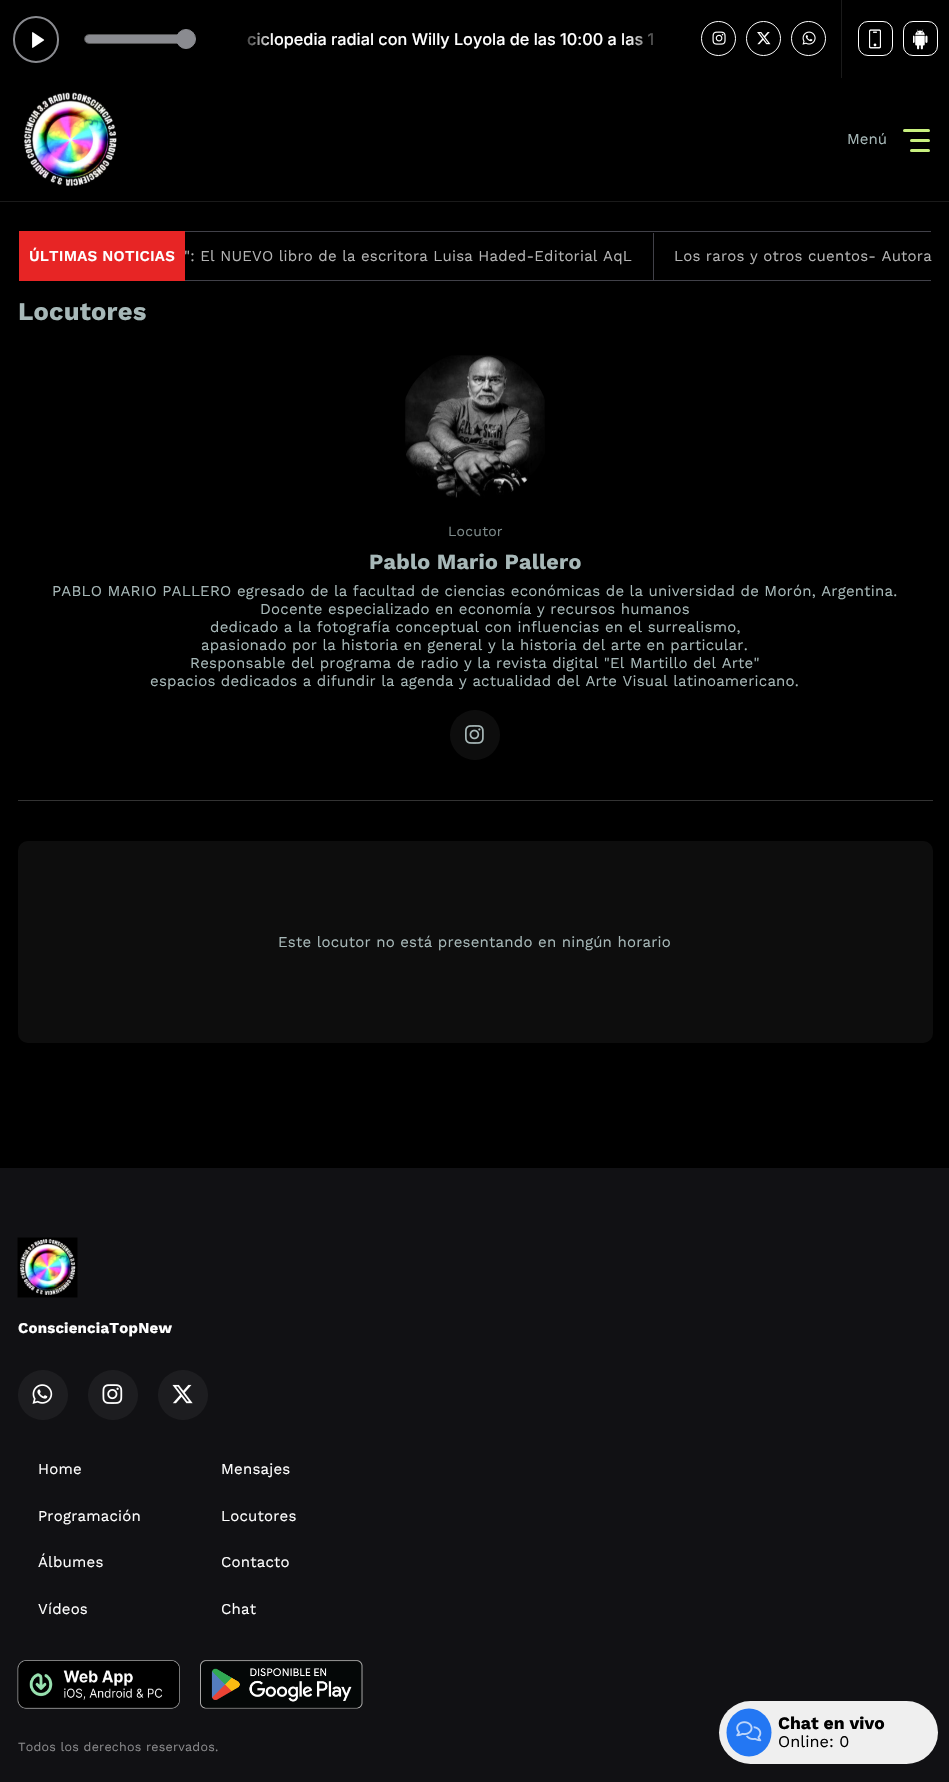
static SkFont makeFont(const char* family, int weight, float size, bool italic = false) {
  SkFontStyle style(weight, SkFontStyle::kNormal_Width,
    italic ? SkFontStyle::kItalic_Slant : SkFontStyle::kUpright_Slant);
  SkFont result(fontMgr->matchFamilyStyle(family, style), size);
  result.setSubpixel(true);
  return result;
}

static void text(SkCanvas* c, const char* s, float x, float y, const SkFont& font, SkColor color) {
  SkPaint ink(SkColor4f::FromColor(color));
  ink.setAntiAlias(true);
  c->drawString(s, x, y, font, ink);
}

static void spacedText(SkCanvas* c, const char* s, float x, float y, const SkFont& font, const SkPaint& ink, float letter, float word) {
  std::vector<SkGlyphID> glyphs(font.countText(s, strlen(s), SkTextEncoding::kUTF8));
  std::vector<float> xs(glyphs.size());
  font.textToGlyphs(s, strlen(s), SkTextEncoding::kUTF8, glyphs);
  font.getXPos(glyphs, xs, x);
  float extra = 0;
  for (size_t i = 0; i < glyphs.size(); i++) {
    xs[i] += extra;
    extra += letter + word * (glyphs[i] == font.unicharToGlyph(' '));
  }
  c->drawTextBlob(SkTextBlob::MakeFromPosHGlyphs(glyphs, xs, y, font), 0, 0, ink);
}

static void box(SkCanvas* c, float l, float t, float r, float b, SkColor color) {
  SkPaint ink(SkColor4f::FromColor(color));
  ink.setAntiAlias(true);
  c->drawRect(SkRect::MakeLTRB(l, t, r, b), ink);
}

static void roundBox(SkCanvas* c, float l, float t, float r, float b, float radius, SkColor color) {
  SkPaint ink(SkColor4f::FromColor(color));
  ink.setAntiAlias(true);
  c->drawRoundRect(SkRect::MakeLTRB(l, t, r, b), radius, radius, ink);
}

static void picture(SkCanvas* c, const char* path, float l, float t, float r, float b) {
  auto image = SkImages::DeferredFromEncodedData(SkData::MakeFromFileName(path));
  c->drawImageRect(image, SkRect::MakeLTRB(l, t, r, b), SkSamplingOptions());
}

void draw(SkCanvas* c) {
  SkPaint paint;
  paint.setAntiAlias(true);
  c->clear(0xff000000);
  paint.setStyle(SkPaint::kStroke_Style);
  paint.setStrokeWidth(2);
  paint.setColor(0xff8a8b90);
  c->drawRoundRect(SkRect::MakeLTRB(14, 17, 58, 62), 22, 22, paint);
  picture(c, "img_01.png", 32, 32, 45, 48);
  paint.setStrokeWidth(1);
  paint.setColor(0xff535353);
  c->drawRoundRect(SkRect::MakeLTRB(84.5f, 34.5f, 187.5f, 43.5f), 4.5f, 4.5f, paint);
  roundBox(c, 85, 35, 186, 43, 4, 0xff8a8b90);
  paint.setStyle(SkPaint::kFill_Style);
  paint.setColor(0xff8a8b90);
  c->drawCircle(186, 39, 9.5f, paint);
  paint.setStyle(SkPaint::kStroke_Style);
  c->drawCircle(186, 39, 9.5f, paint);
  SkFont face1 = makeFont("Inter", 500, 16.25f);
  text(c, "ciclopedia radial con Willy Loyola de las 10:00 a las 1", 247, 45, face1, 0xffffffff);
  paint.setStyle(SkPaint::kFill_Style);
  {
    const SkColor colors[] = {0xff000000, 0x00000000};
    const float stops[] = {0.2f, 1};
    const SkPoint ends[] = {{228, 39}, {273, 39}};
    paint.setShader(SkGradientShader::MakeLinear(ends, colors, stops, 2, SkTileMode::kClamp));
    paint.setAlpha(255);
  }
  c->drawRect(SkRect::MakeLTRB(247, 32, 272, 46), paint);
  {
    const SkColor colors[] = {0xff000000, 0x00000000};
    const float stops[] = {0.2f, 1};
    const SkPoint ends[] = {{671, 39}, {628, 39}};
    paint.setShader(SkGradientShader::MakeLinear(ends, colors, stops, 2, SkTileMode::kClamp));
    paint.setAlpha(255);
  }
  c->drawRect(SkRect::MakeLTRB(629, 33, 654, 46), paint);
  paint.setStyle(SkPaint::kStroke_Style);
  paint.setShader(nullptr);
  paint.setColor(0xffffffff);
  c->drawCircle(718.5f, 38.5f, 17, paint);
  picture(c, "img_02.png", 712, 31, 726, 45);
  c->drawCircle(763.5f, 38.5f, 17, paint);
  picture(c, "img_03.png", 757, 32, 771, 45);
  c->drawCircle(808.5f, 38.5f, 17, paint);
  picture(c, "img_04.png", 802, 31, 816, 45);
  box(c, 841, 0, 842, 78, 0xff1a1a1a);
  c->drawRoundRect(SkRect::MakeLTRB(858.5f, 21.5f, 892.5f, 55.5f), 9.5f, 9.5f, paint);
  picture(c, "img_05.png", 869, 29, 881, 49);
  c->drawRoundRect(SkRect::MakeLTRB(903.5f, 21.5f, 937.5f, 55.5f), 9.5f, 9.5f, paint);
  picture(c, "img_06.png", 913, 29, 928, 50);
  box(c, 0, 201, 949, 202, 0xff1a1a1a);
  picture(c, "img_07.png", 24, 92, 117, 186);
  SkFont face2 = makeFont("Work Sans", 400, 15);
  text(c, "Menú", 847, 144, face2, 0xffa7b8b8);
  roundBox(c, 910, 139, 930, 142, 1.5f, 0xffc8f07f);
  roundBox(c, 903, 129, 930, 132, 1.5f, 0xffc8f07f);
  roundBox(c, 910, 149, 930, 152, 1.5f, 0xffc8f07f);
  box(c, 19, 231, 185, 281, 0xffe72525);
  SkFont face3 = makeFont("Work Sans", 600, 15);
  paint.setStyle(SkPaint::kFill_Style);
  spacedText(c, "ÚLTIMAS NOTICIAS", 29, 261, face3, paint, 0.22f, 0);
  box(c, 185, 231, 931, 232, 0xff414149);
  box(c, 185, 280, 931, 281, 0xff414149);
  paint.setColor(0xffb3b3b3);
  spacedText(c, "\": El NUEVO libro de la escritora Luisa Haded-Editorial AqL", 184, 261, face2, paint, 0.22f, 0);
  box(c, 653, 233, 654, 280, 0xff414149);
  spacedText(c, "Los raros y otros cuentos- Autora", 674, 261, face2, paint, 0.22f, 0);
  SkFont face4 = makeFont("Work Sans", 700, 25.5f);
  paint.setColor(0xffa7b8b8);
  spacedText(c, "Locutores", 18, 320, face4, paint, 0.22f, 0);
  box(c, 18, 800, 933, 801, 0xff333333);
  picture(c, "img_08.png", 405, 355, 545, 498);
  SkFont face5 = makeFont("Work Sans", 400, 14);
  paint.setColor(0xff7d8a8a);
  spacedText(c, "Locutor", 448, 536, face5, paint, 0.22f, 0);
  SkFont face6 = makeFont("Work Sans", 700, 21.5f);
  paint.setColor(0xffa7b8b8);
  spacedText(c, "Pablo Mario Pallero", 369, 569, face6, paint, 0.22f, 0);
  spacedText(c, "PABLO MARIO PALLERO egresado de la facultad de ciencias económicas de la universidad de Morón, Argentina.", 52, 596, face2, paint, 0.22f, 0);
  spacedText(c, "Docente especializado en economía y recursos humanos", 260, 614, face2, paint, 0.22f, 0);
  spacedText(c, "dedicado a la fotografía conceptual con influencias en el surrealismo,", 210, 632, face2, paint, 0.22f, 0);
  spacedText(c, "apasionado por la historia en general y la historia del arte en particular.", 201, 650, face2, paint, 0.22f, 0);
  spacedText(c, "Responsable del programa de radio y la revista digital \"El Martillo del Arte\"", 190, 668, face2, paint, 0.22f, 0);
  spacedText(c, "espacios dedicados a difundir la agenda y actualidad del Arte Visual latinoamericano.", 150, 686, face2, paint, 0.22f, 0);
  paint.setColor(0xff0d0d0d);
  c->drawCircle(475, 735, 25, paint);
  picture(c, "img_09.png", 465, 725, 484, 744);
  roundBox(c, 18, 841, 933, 1043, 10, 0xff0d0d0d);
  paint.setColor(0xffa7b8b8);
  spacedText(c, "Este locutor no está presentando en ningún horario", 278, 947, face2, paint, 0.22f, 0);
  box(c, 0, 1168, 949, 1782, 0xff111114);
  picture(c, "img_10.png", 17, 1237, 78, 1298);
  SkFont face7 = makeFont("Work Sans", 700, 15);
  paint.setColor(0xffffffff);
  spacedText(c, "ConscienciaTopNew", 18, 1333, face7, paint, 0.22f, 0);
  paint.setColor(0xff1d1d20);
  c->drawCircle(43, 1395, 25, paint);
  picture(c, "img_11.png", 32, 1384, 53, 1404);
  c->drawCircle(113, 1395, 25, paint);
  picture(c, "img_12.png", 102, 1384, 123, 1404);
  c->drawCircle(183, 1395, 25, paint);
  picture(c, "img_13.png", 172, 1384, 193, 1404);
  paint.setColor(0xffffffff);
  spacedText(c, "Home", 38, 1474, face2, paint, 0.22f, 0);
  spacedText(c, "Mensajes", 221, 1474, face2, paint, 0.22f, 0);
  spacedText(c, "Programación", 38, 1521, face2, paint, 0.22f, 0);
  spacedText(c, "Locutores", 221, 1521, face2, paint, 0.22f, 0);
  spacedText(c, "Álbumes", 38, 1567, face2, paint, 0.22f, 0);
  spacedText(c, "Contacto", 221, 1567, face2, paint, 0.22f, 0);
  spacedText(c, "Vídeos", 38, 1614, face2, paint, 0.22f, 0);
  spacedText(c, "Chat", 221, 1614, face2, paint, 0.22f, 0);
  picture(c, "img_14.png", 17, 1660, 180, 1709);
  picture(c, "img_15.png", 200, 1660, 363, 1709);
  SkFont face8 = makeFont("Work Sans", 400, 12.5f);
  paint.setColor(0xff88888a);
  spacedText(c, "Todos los derechos reservados.", 18, 1751, face8, paint, 0.22f, 0);
  roundBox(c, 719, 1701, 938, 1764, 31.5f, 0xffefefef);
  paint.setColor(0xff2377f3);
  c->drawOval(SkRect::MakeLTRB(726.5f, 1708.5f, 771.5f, 1756.5f), paint);
  picture(c, "img_16.png", 736, 1721, 762, 1742);
  SkFont face9 = makeFont("Work Sans", 700, 17.5f);
  text(c, "Chat en vivo", 778, 1729, face9, 0xff000000);
  SkFont face10 = makeFont("Work Sans", 400, 16.25f);
  text(c, "Online: 0", 778, 1747, face10, 0xff000000);
}
